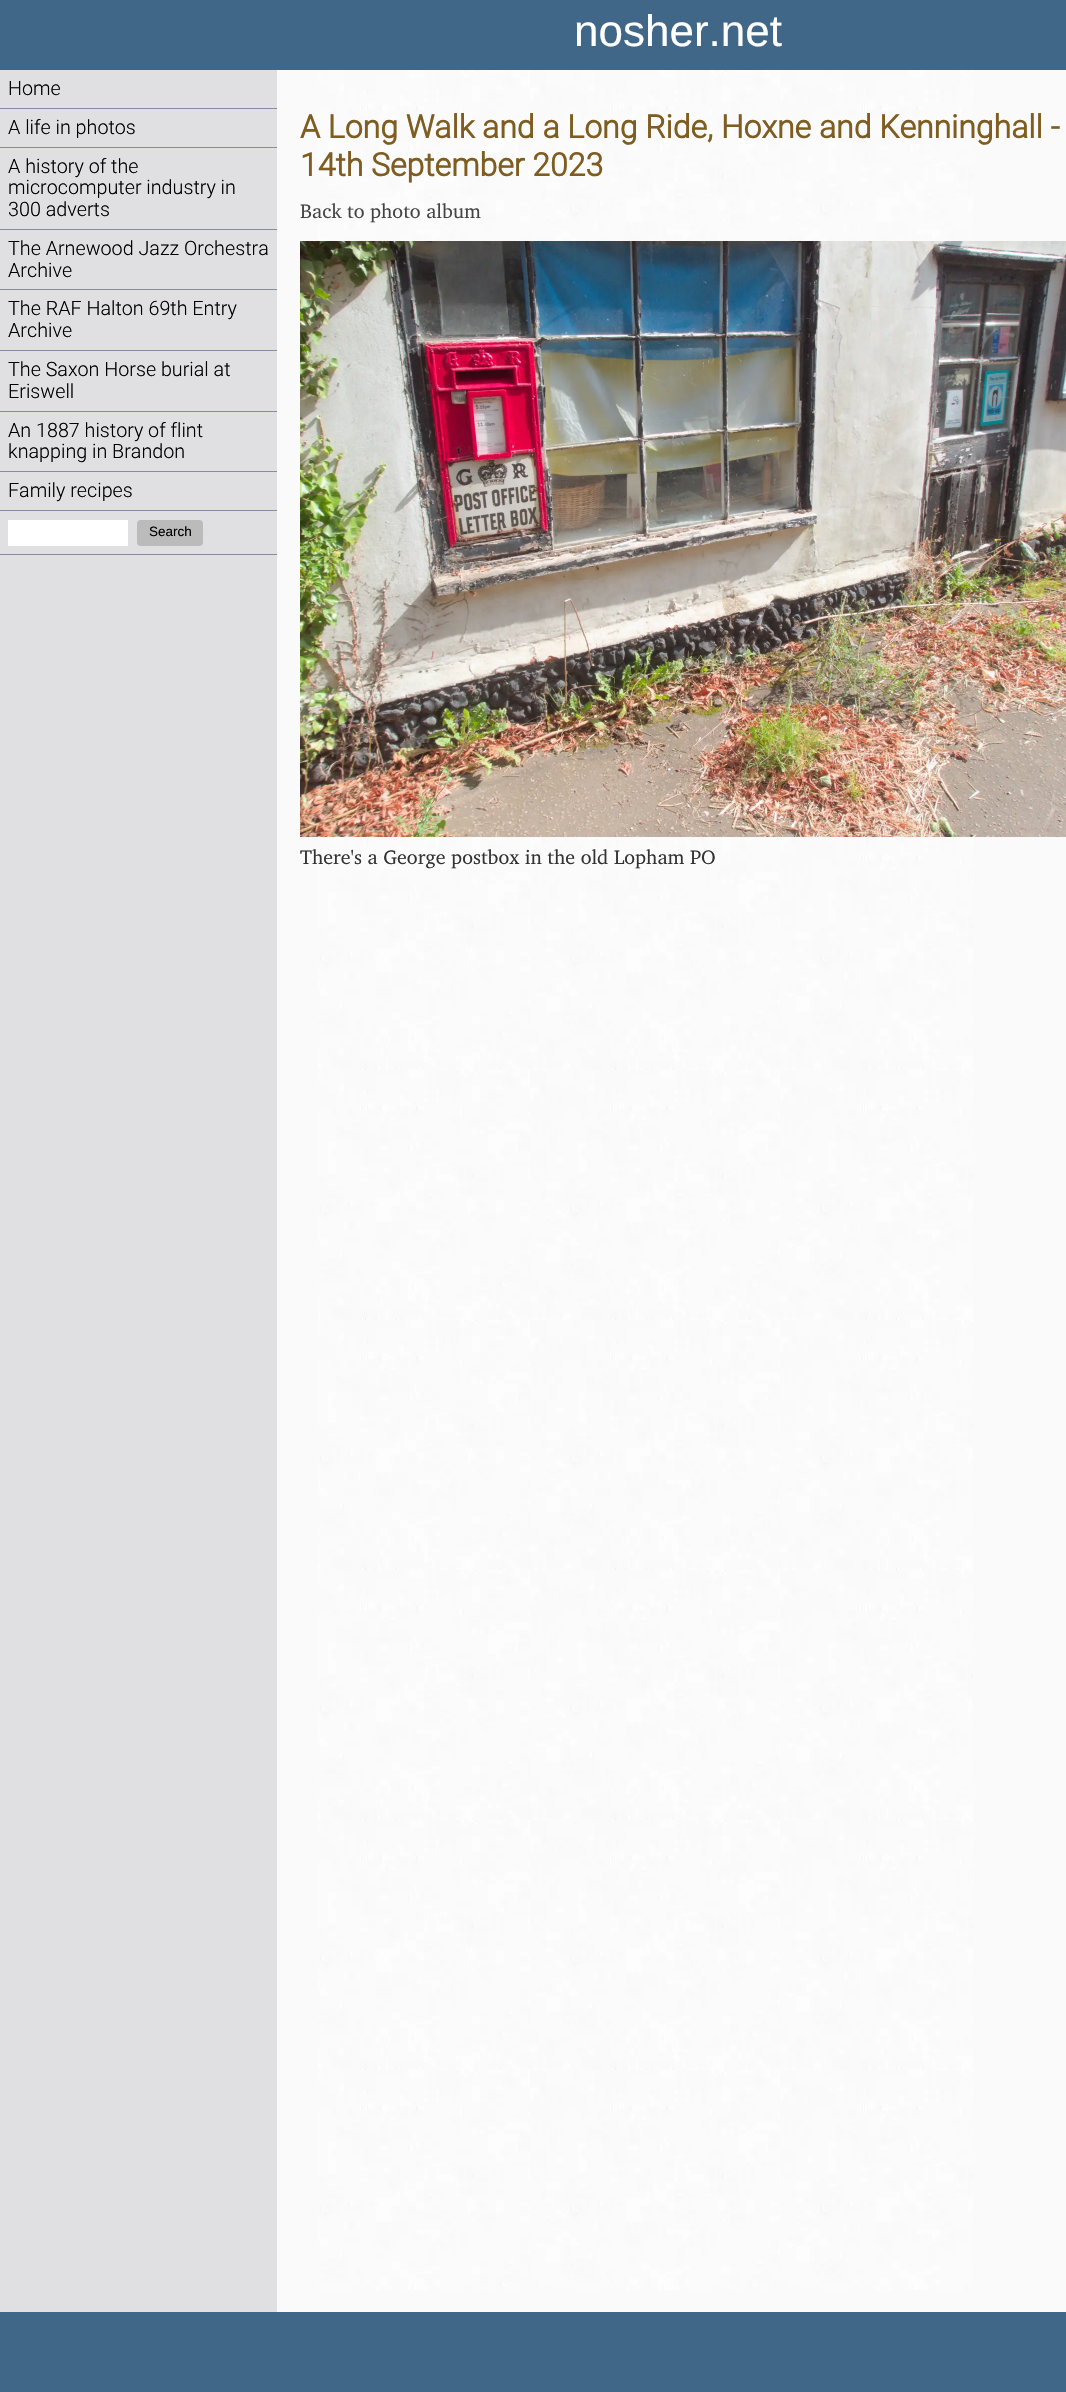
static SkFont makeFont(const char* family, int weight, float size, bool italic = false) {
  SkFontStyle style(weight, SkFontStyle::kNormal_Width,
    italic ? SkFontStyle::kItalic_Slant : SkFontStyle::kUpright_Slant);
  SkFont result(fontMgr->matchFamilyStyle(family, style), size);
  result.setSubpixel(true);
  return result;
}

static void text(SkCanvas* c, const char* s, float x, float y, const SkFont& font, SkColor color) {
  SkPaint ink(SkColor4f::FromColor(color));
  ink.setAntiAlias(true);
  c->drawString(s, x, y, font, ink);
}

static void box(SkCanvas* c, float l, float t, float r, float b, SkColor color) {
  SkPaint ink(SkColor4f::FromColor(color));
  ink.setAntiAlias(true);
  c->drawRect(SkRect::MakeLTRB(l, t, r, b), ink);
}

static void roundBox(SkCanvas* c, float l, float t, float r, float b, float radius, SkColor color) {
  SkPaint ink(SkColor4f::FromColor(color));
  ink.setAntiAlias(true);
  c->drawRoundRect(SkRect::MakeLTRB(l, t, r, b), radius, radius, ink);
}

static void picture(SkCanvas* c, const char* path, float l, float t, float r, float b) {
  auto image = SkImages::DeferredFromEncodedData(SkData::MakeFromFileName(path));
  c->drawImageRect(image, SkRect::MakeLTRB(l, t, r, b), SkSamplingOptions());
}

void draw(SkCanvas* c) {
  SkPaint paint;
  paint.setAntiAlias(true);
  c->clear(0xfffafafa);
  box(c, 0, 0, 1066, 70, 0xff416788);
  SkFont face1 = makeFont("Liberation Sans", 400, 44);
  text(c, "nosher.net", 574, 46, face1, 0xffffffff);
  box(c, 0, 70, 277, 2312, 0xffe0e0e2);
  box(c, 0, 108, 277, 109, 0xff838ca0);
  SkFont face2 = makeFont("Roboto", 300, 19.75f);
  text(c, "Home", 8, 95, face2, 0xff000000);
  box(c, 0, 147, 277, 148, 0xff838ca0);
  text(c, "A life in photos", 8, 134, face2, 0xff000000);
  box(c, 0, 229, 277, 230, 0xff838ca0);
  text(c, "A history of the", 8, 173, face2, 0xff000000);
  text(c, "microcomputer industry in", 8, 194, face2, 0xff000000);
  text(c, "300 adverts", 8, 216, face2, 0xff000000);
  box(c, 0, 289, 277, 290, 0xff838ca0);
  text(c, "The Arnewood Jazz Orchestra", 8, 255, face2, 0xff000000);
  text(c, "Archive", 8, 277, face2, 0xff000000);
  box(c, 0, 350, 277, 351, 0xff838ca0);
  text(c, "The RAF Halton 69th Entry", 8, 315, face2, 0xff000000);
  text(c, "Archive", 8, 337, face2, 0xff000000);
  box(c, 0, 411, 277, 412, 0xff838ca0);
  text(c, "The Saxon Horse burial at", 8, 376, face2, 0xff000000);
  text(c, "Eriswell", 8, 398, face2, 0xff000000);
  box(c, 0, 471, 277, 472, 0xff838ca0);
  text(c, "An 1887 history of flint", 8, 437, face2, 0xff000000);
  text(c, "knapping in Brandon", 8, 458, face2, 0xff000000);
  box(c, 0, 510, 277, 511, 0xff838ca0);
  text(c, "Family recipes", 8, 497, face2, 0xff000000);
  box(c, 0, 554, 277, 555, 0xff838ca0);
  box(c, 8, 520, 128, 546, 0xffffffff);
  roundBox(c, 137, 520, 203, 546, 4, 0xffbbbbbb);
  SkFont face3 = makeFont("Liberation Sans", 400, 13.5f);
  text(c, "Search", 149, 536, face3, 0xff000000);
  picture(c, "img_01.png", 318, 70, 973, 2290);
  SkFont face4 = makeFont("Roboto", 700, 32);
  text(c, "A Long Walk and a Long Ride, Hoxne and Kenninghall -", 300, 138, face4, 0xff7f5d21);
  text(c, "14th September 2023", 300, 176, face4, 0xff7f5d21);
  SkFont face5 = makeFont("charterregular", 400, 20);
  text(c, "Back to photo album", 300, 218, face5, 0xff444444);
  picture(c, "img_02.png", 300, 241, 1066, 837);
  text(c, "There's a George postbox in the old Lopham PO", 300, 864, face5, 0xff333333);
  box(c, 0, 2312, 1066, 2392, 0xff416788);
}
